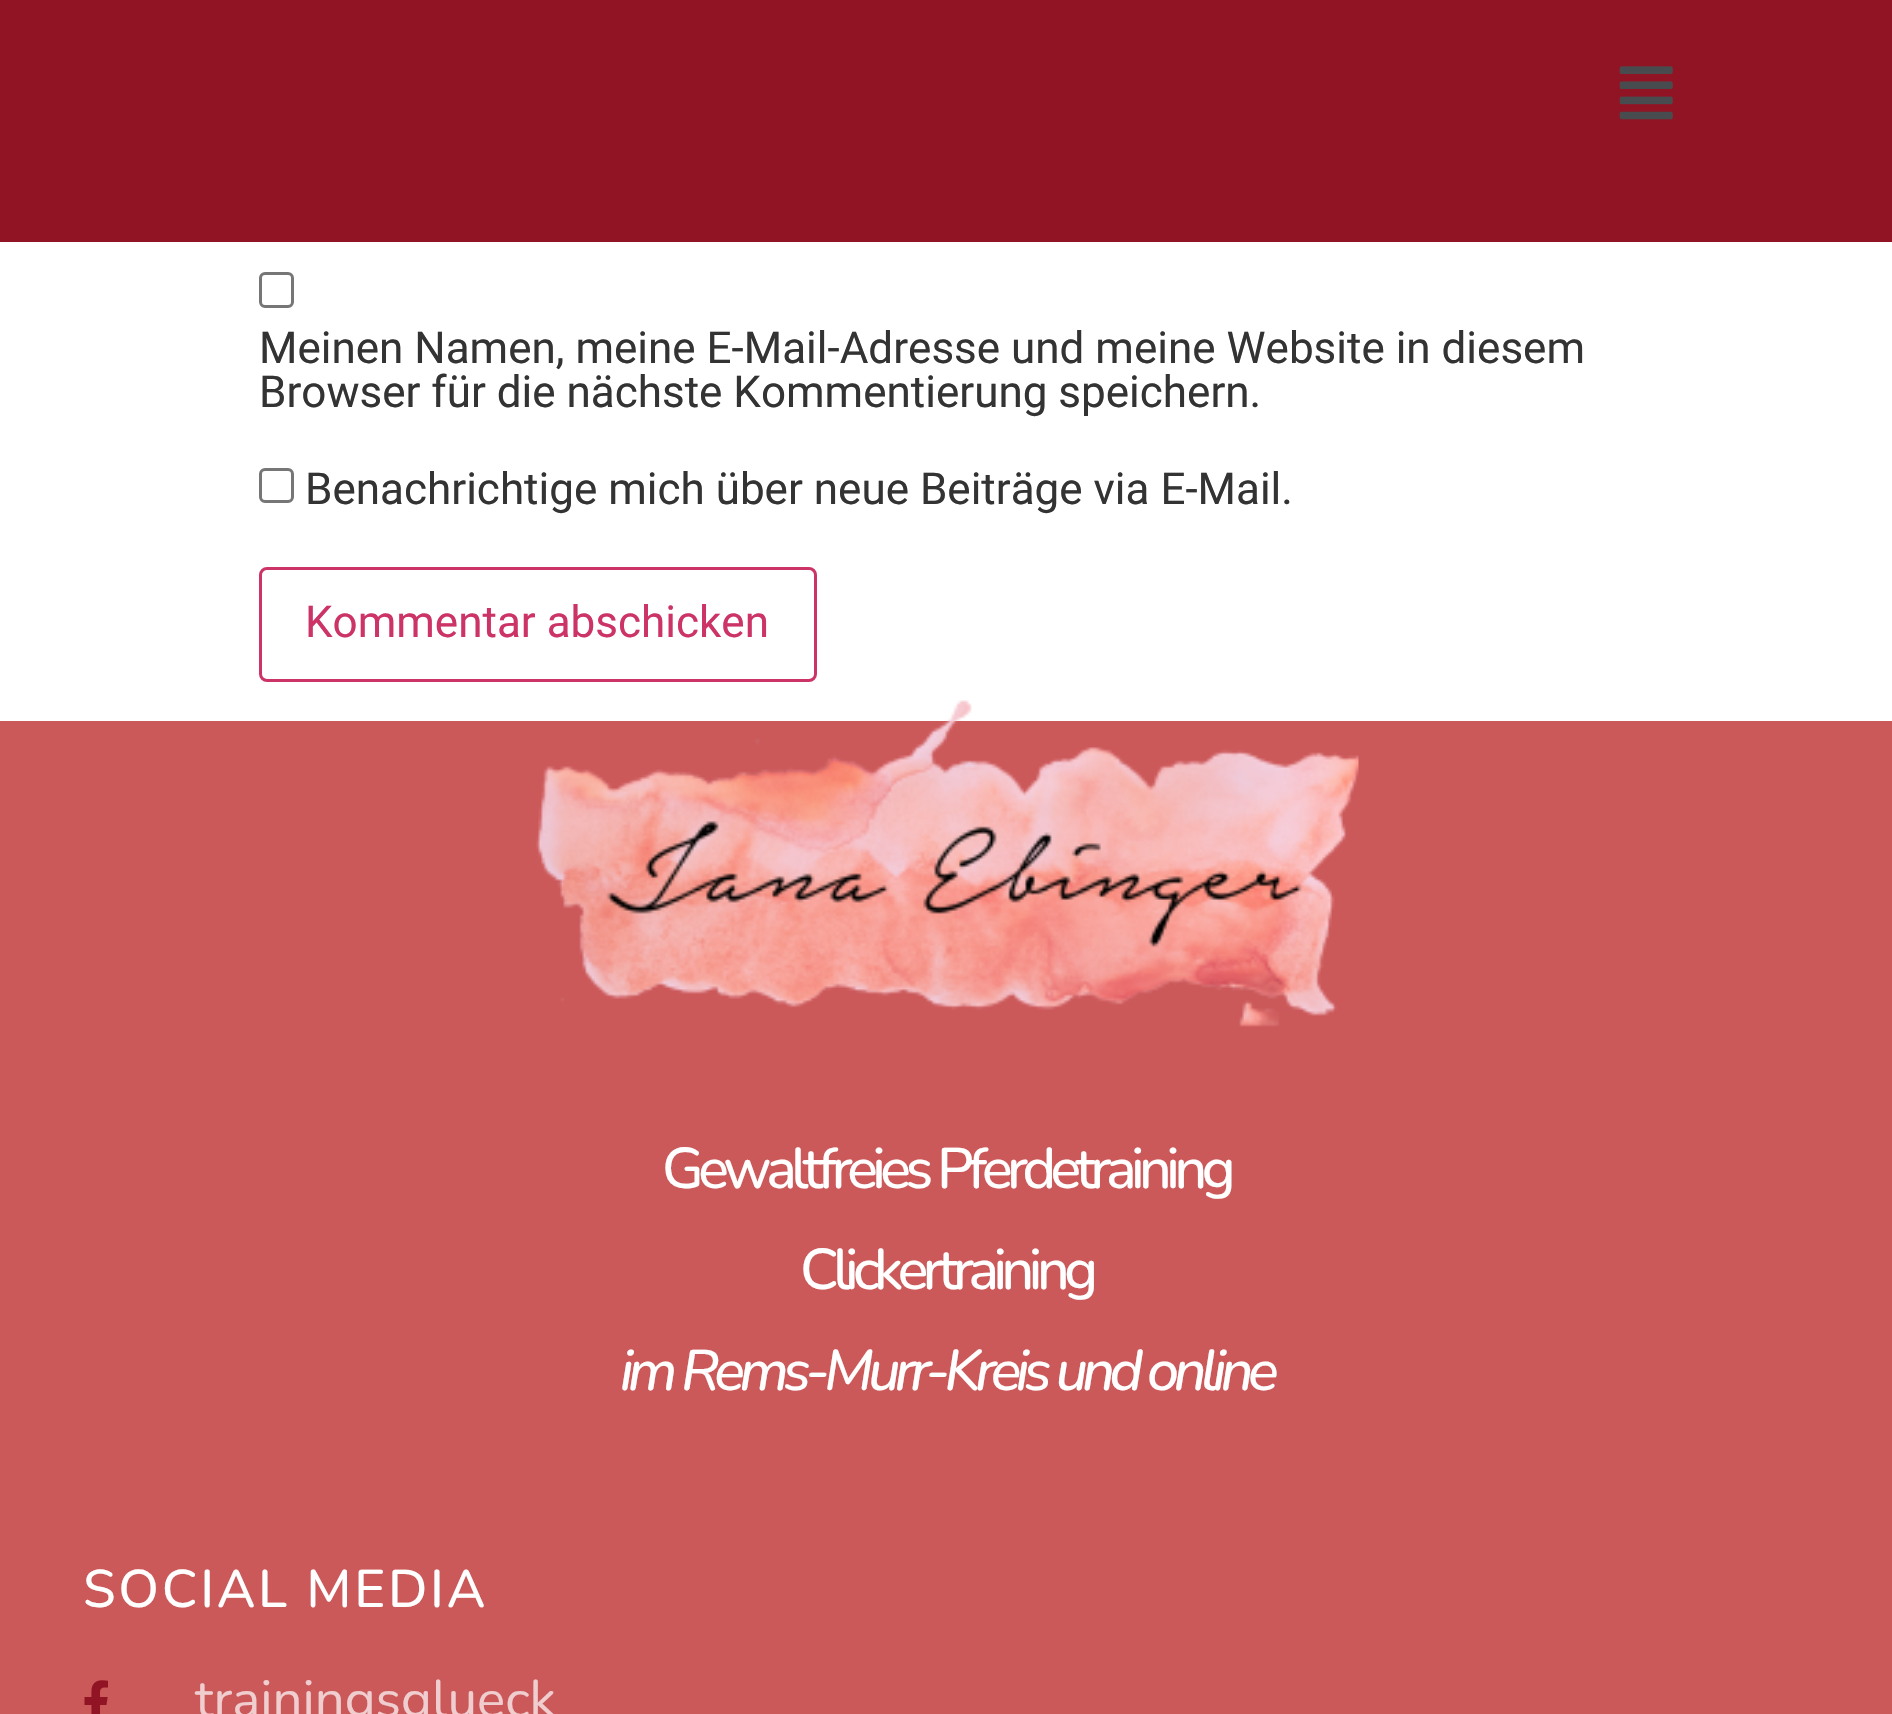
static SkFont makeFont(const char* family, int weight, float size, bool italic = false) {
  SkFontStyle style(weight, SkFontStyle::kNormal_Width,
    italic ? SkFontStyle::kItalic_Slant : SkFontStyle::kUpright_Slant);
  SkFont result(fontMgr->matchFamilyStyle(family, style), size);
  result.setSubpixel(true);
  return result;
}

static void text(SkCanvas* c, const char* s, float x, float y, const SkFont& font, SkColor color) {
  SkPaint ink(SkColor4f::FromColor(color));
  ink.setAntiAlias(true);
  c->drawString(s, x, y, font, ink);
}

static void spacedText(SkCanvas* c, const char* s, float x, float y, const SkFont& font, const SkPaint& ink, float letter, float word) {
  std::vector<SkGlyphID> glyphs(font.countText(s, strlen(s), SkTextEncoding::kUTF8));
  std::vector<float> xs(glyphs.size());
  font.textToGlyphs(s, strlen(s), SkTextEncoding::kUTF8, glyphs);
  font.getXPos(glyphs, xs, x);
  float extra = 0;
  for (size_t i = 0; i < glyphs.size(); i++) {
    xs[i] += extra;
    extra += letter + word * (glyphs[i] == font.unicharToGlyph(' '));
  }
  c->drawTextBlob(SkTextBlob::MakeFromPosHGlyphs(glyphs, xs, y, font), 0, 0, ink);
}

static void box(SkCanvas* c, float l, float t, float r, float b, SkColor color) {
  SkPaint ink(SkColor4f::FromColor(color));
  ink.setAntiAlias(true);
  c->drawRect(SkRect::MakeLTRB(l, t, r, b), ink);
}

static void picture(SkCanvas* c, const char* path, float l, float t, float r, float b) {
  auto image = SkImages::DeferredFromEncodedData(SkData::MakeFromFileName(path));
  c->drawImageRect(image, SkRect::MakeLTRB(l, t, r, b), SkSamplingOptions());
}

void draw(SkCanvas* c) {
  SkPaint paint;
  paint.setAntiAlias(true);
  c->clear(0xffffffff);
  box(c, 0, 0, 1892, 242, 0xff901424);
  picture(c, "img_01.png", 1619, 66, 1673, 120);
  paint.setStyle(SkPaint::kStroke_Style);
  paint.setStrokeWidth(3);
  paint.setColor(0xff767676);
  c->drawRoundRect(SkRect::MakeLTRB(260.5f, 273.5f, 292.5f, 306.5f), 4.5f, 4.5f, paint);
  SkFont face1 = makeFont("Roboto", 400, 44);
  text(c, "Meinen Namen, meine E-Mail-Adresse und meine Website in diesem", 259, 363, face1, 0xff333333);
  text(c, "Browser für die nächste Kommentierung speichern.", 259, 407, face1, 0xff333333);
  c->drawRoundRect(SkRect::MakeLTRB(260.5f, 469.5f, 292.5f, 501.5f), 4.5f, 4.5f, paint);
  text(c, "Benachrichtige mich über neue Beiträge via E-Mail.", 305, 504, face1, 0xff333333);
  paint.setColor(0xffcc3366);
  c->drawRoundRect(SkRect::MakeLTRB(260.5f, 568.5f, 815.5f, 680.5f), 6.5f, 6.5f, paint);
  text(c, "Kommentar abschicken", 305, 637, face1, 0xffcc3366);
  box(c, 0, 721, 1892, 1714, 0xffcc595a);
  picture(c, "img_02.png", 536, 700, 1359, 1027);
  SkFont face2 = makeFont("Nunito", 500, 57.25f);
  paint.setStyle(SkPaint::kFill_Style);
  paint.setColor(0xffffffff);
  spacedText(c, "Gewaltfreies Pferdetraining", 662, 1188, face2, paint, -5.5f, 0);
  spacedText(c, "Clickertraining", 800, 1289, face2, paint, -5.5f, 0);
  SkFont face3 = makeFont("Nunito", 500, 57.25f, true);
  spacedText(c, "im Rems-Murr-Kreis und online", 620, 1390, face3, paint, -5.5f, 0);
  SkFont face4 = makeFont("Nunito", 500, 52.75f);
  spacedText(c, "SOCIAL MEDIA", 83, 1607, face4, paint, 2.75f, 0);
  picture(c, "img_03.png", 84, 1680, 108, 1714);
  SkFont face5 = makeFont("Nunito", 400, 52.75f);
  text(c, "trainingsglueck", 195, 1717, face5, 0xfff0cdce);
}
